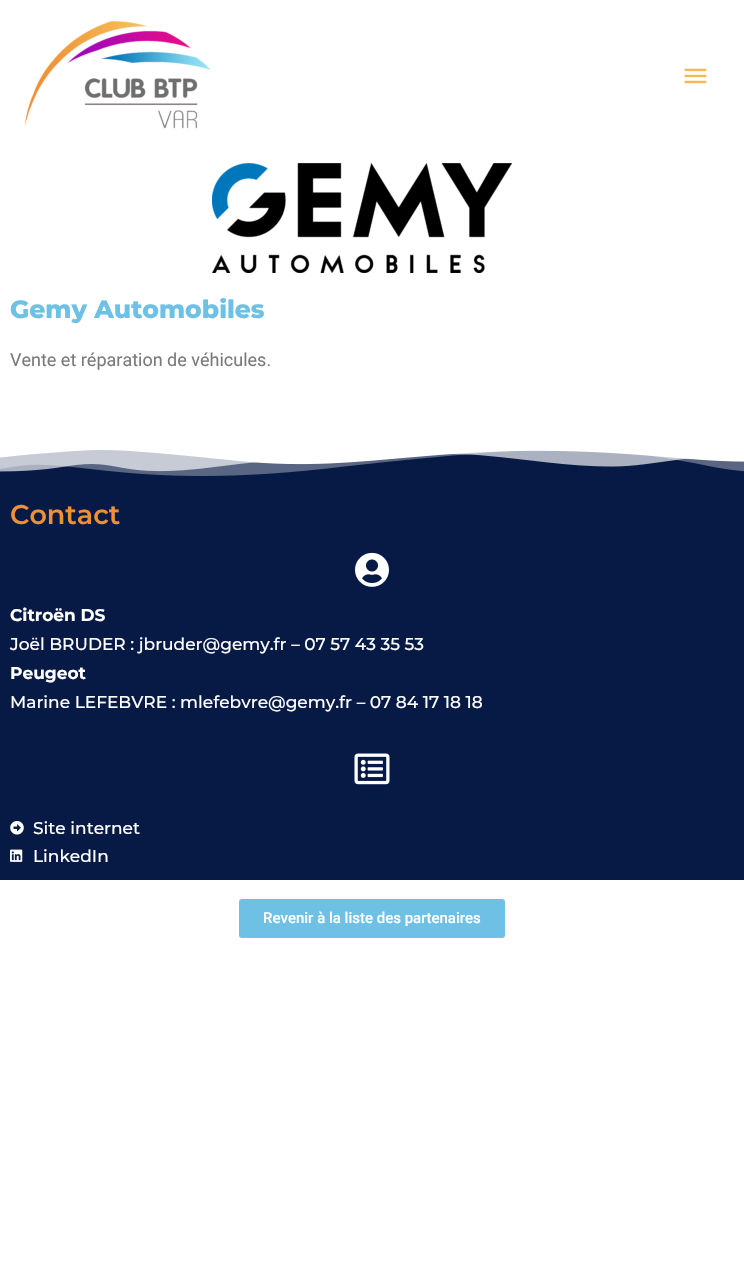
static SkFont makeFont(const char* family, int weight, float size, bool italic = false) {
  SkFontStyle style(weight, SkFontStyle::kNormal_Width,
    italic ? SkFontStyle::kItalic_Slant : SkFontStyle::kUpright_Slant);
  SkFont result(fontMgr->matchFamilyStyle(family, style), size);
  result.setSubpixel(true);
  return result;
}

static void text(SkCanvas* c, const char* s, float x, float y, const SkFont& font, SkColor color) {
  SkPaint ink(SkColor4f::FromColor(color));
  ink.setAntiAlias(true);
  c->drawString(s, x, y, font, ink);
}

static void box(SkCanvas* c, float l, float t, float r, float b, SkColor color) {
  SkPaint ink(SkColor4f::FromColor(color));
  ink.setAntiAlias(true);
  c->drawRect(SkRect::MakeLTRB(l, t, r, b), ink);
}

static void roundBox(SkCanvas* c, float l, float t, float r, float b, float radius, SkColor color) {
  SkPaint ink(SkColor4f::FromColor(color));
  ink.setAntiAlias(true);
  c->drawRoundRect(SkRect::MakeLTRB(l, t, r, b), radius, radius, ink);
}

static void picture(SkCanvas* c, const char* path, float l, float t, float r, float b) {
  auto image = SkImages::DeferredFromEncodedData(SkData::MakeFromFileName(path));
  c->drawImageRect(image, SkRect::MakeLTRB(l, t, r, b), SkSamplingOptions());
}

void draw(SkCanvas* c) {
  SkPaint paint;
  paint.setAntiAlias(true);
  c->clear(0xffffffff);
  picture(c, "img_01.png", 24, 20, 211, 129);
  picture(c, "img_02.png", 684, 68, 707, 84);
  picture(c, "img_03.png", 212, 163, 512, 273);
  SkFont face1 = makeFont("Montserrat", 800, 25);
  text(c, "Gemy Automobiles", 10, 318, face1, 0xff6ec1e4);
  SkFont face2 = makeFont("Roboto", 400, 18);
  text(c, "Vente et réparation de véhicules.", 10, 366, face2, 0xff7a7a7a);
  box(c, 0, 450, 744, 880, 0xff071a46);
  picture(c, "img_04.png", 0, 448, 744, 476);
  SkFont face3 = makeFont("Montserrat", 600, 27);
  text(c, "Contact", 10, 524, face3, 0xffef9033);
  picture(c, "img_05.png", 355, 552, 389, 587);
  SkFont face4 = makeFont("Montserrat", 700, 17);
  text(c, "Citroën DS", 10, 621, face4, 0xffffffff);
  SkFont face5 = makeFont("Montserrat", 500, 17);
  text(c, "Joël BRUDER : jbruder@gemy.fr – 07 57 43 35 53", 10, 650, face5, 0xffffffff);
  text(c, "Peugeot", 10, 679, face4, 0xffffffff);
  text(c, "Marine LEFEBVRE : mlefebvre@gemy.fr – 07 84 17 18 18", 10, 708, face5, 0xffffffff);
  picture(c, "img_06.png", 354, 753, 390, 785);
  picture(c, "img_07.png", 10, 821, 24, 835);
  text(c, "Site internet", 33, 834, face5, 0xffffffff);
  picture(c, "img_08.png", 10, 849, 23, 862);
  text(c, "LinkedIn", 33, 862, face5, 0xffffffff);
  roundBox(c, 239, 899, 505, 938, 3, 0xff6ec1e4);
  SkFont face6 = makeFont("Roboto", 500, 15);
  text(c, "Revenir à la liste des partenaires", 263, 923, face6, 0xffffffff);
}
